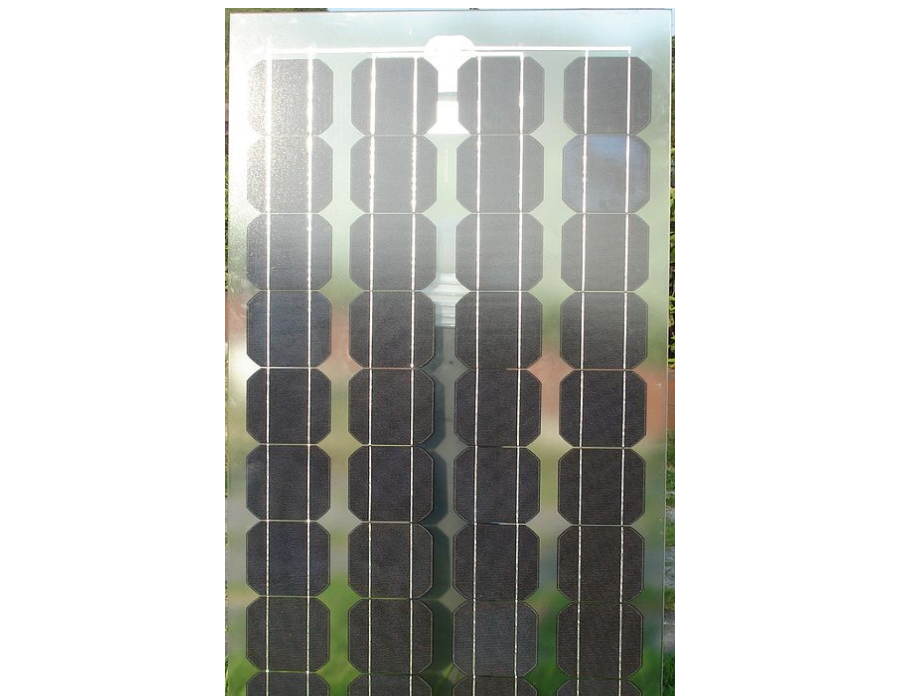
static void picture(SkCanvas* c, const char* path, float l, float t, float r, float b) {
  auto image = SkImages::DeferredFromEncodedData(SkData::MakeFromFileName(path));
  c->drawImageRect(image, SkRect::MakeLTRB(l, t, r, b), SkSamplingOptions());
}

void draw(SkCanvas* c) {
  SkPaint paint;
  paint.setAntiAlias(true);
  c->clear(0xffffffff);
  picture(c, "img_01.png", 225, 8, 675, 696);
}
